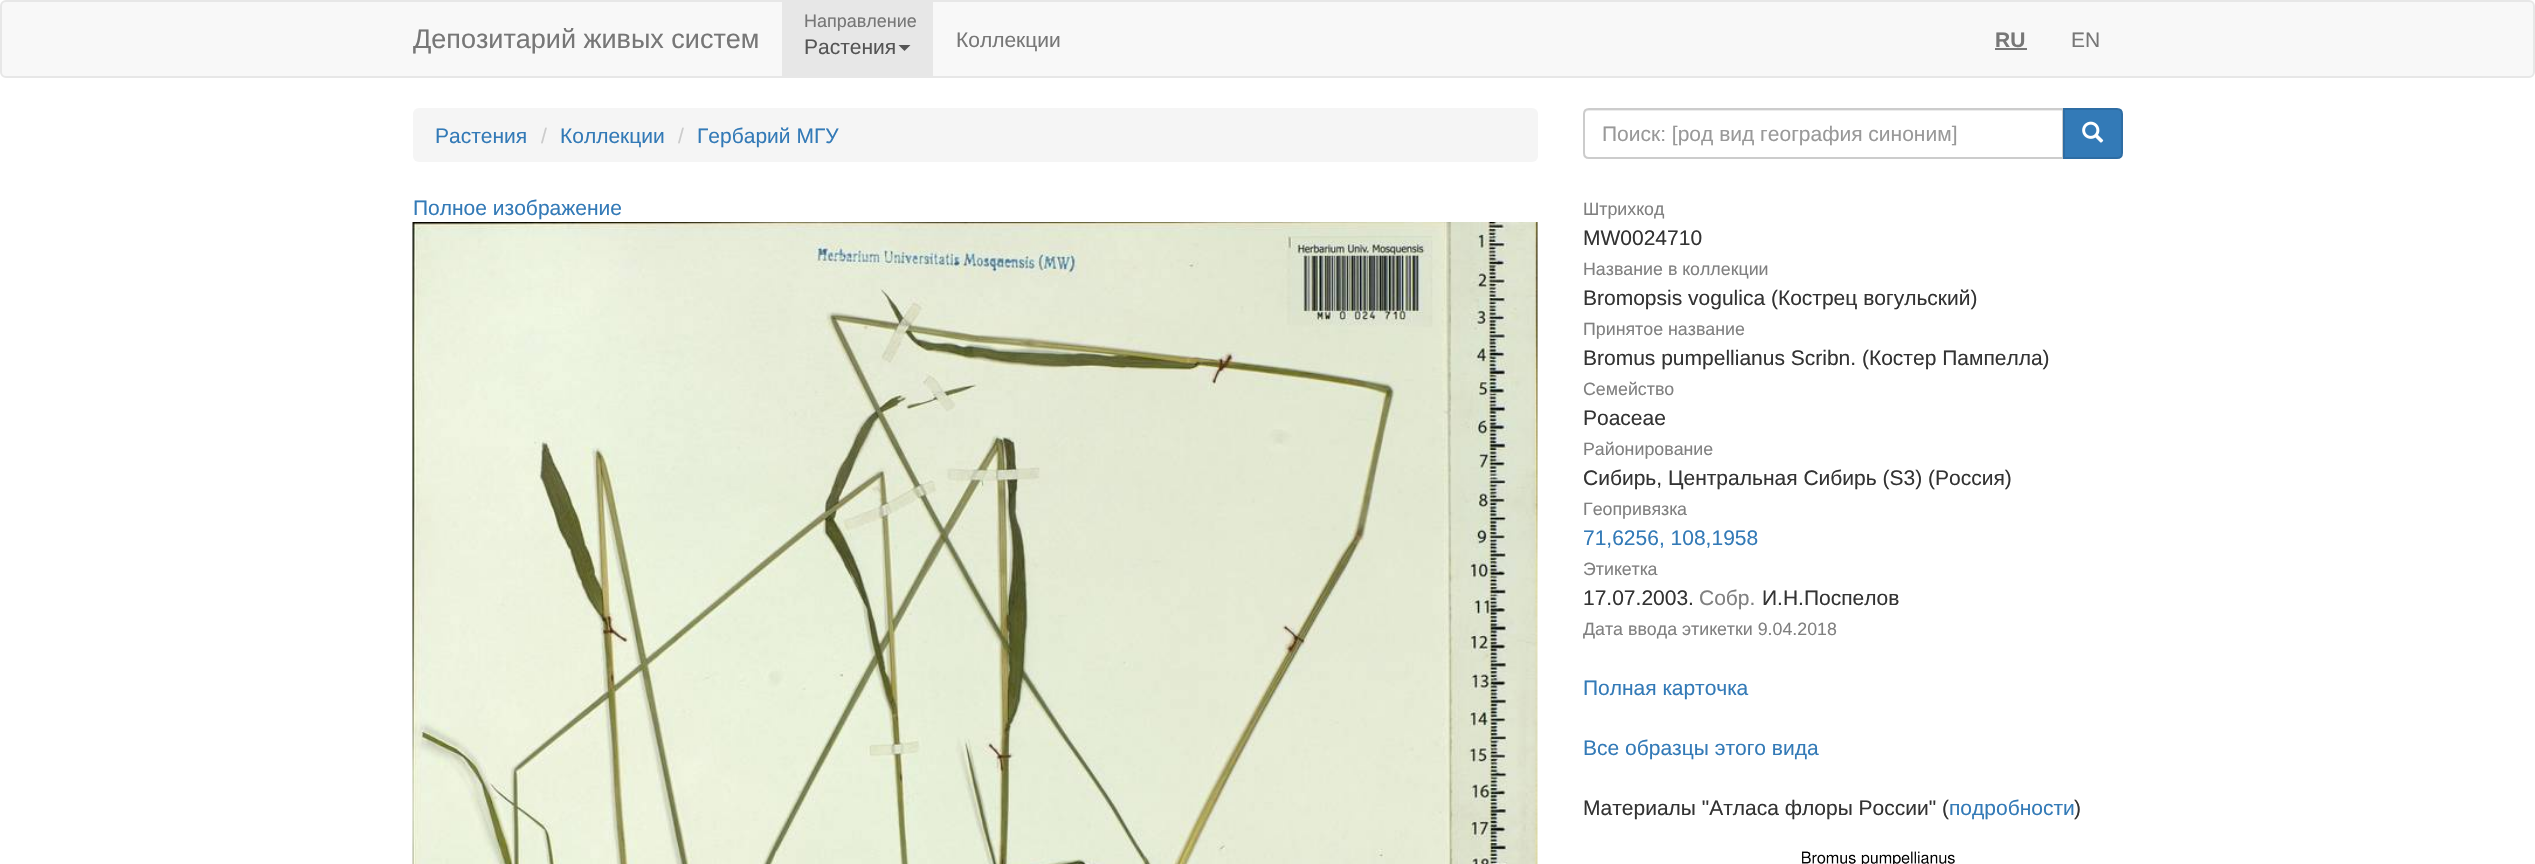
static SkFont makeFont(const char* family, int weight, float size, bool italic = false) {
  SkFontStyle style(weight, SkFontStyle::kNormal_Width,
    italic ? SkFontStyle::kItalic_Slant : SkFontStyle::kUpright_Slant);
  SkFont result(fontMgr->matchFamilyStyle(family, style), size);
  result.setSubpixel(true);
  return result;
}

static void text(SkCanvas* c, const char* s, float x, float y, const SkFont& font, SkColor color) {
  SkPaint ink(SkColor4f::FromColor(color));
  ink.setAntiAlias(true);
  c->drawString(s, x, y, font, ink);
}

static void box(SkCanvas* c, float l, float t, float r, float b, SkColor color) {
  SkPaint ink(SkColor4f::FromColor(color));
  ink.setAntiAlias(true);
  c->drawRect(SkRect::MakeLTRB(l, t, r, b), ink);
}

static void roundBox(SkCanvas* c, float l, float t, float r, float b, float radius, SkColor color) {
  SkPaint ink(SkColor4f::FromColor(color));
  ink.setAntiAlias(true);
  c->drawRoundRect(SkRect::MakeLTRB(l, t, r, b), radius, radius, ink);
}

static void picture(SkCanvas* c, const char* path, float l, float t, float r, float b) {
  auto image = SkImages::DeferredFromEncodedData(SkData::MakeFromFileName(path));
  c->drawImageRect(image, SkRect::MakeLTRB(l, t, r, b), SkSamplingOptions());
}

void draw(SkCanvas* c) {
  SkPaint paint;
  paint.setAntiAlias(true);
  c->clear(0xffffffff);
  paint.setColor(0xfff8f8f8);
  c->drawRoundRect(SkRect::MakeLTRB(1, 1, 2534, 77), 5, 5, paint);
  paint.setStyle(SkPaint::kStroke_Style);
  paint.setStrokeWidth(2);
  paint.setColor(0xffe7e7e7);
  c->drawRoundRect(SkRect::MakeLTRB(1, 1, 2534, 77), 5, 5, paint);
  SkFont face1 = makeFont("Liberation Sans", 400, 27);
  text(c, "Депозитарий живых систем", 413, 48, face1, 0xff777777);
  box(c, 782, 2, 933, 76, 0xffe7e7e7);
  SkFont face2 = makeFont("Liberation Sans", 400, 18);
  text(c, "Направление", 804, 27, face2, 0xff777777);
  SkFont face3 = makeFont("Liberation Sans", 400, 21);
  text(c, "Растения", 804, 54, face3, 0xff555555);
  paint.setStyle(SkPaint::kFill_Style);
  paint.setColor(0xff555555);
  c->drawPath(SkPathBuilder().moveTo(898.5f, 45).lineTo(910.5f, 45).lineTo(904.5f, 51).close().detach(), paint);
  text(c, "Коллекции", 956, 47, face3, 0xff777777);
  SkFont face4 = makeFont("Liberation Sans", 700, 21);
  text(c, "RU", 1995, 47, face4, 0xff777777);
  box(c, 1995, 48, 2027, 50, 0xff777777);
  text(c, "EN", 2071, 47, face3, 0xff777777);
  roundBox(c, 413, 108, 1538, 162, 6, 0xfff5f5f5);
  text(c, "Растения", 435, 143, face3, 0xff337ab7);
  text(c, "/", 541, 143, face3, 0xffcccccc);
  text(c, "Коллекции", 560, 143, face3, 0xff337ab7);
  text(c, "/", 678, 143, face3, 0xffcccccc);
  text(c, "Гербарий МГУ", 697, 143, face3, 0xff337ab7);
  paint.setColor(0xffececec);
  c->drawPath(SkPathBuilder().moveTo(1588, 111).lineTo(2062, 111).lineTo(2062, 158).lineTo(2063, 158).lineTo(2063, 110).lineTo(1589, 110).cubicTo(1586, 110, 1584, 112, 1584, 115).lineTo(1584, 116).cubicTo(1584, 113, 1586, 111, 1588, 111).close().detach(), paint);
  paint.setStyle(SkPaint::kStroke_Style);
  paint.setColor(0xffcccccc);
  c->drawPath(SkPathBuilder().moveTo(1589, 109).lineTo(2063, 109).lineTo(2063, 158).lineTo(1589, 158).cubicTo(1586, 158, 1584, 156, 1584, 153).lineTo(1584, 114).cubicTo(1584, 111, 1586, 109, 1589, 109).close().detach(), paint);
  text(c, "Поиск: [род вид география синоним]", 1602, 141, face3, 0xff999999);
  paint.setStyle(SkPaint::kFill_Style);
  paint.setColor(0xff337ab7);
  c->drawPath(SkPathBuilder().moveTo(2064, 109).lineTo(2117, 109).cubicTo(2120, 109, 2122, 111, 2122, 114).lineTo(2122, 153).cubicTo(2122, 156, 2120, 158, 2117, 158).lineTo(2064, 158).close().detach(), paint);
  paint.setStyle(SkPaint::kStroke_Style);
  paint.setColor(0xff2e6da4);
  c->drawPath(SkPathBuilder().moveTo(2064, 109).lineTo(2117, 109).cubicTo(2120, 109, 2122, 111, 2122, 114).lineTo(2122, 153).cubicTo(2122, 156, 2120, 158, 2117, 158).lineTo(2064, 158).close().detach(), paint);
  picture(c, "img_01.png", 2082, 121, 2104, 143);
  text(c, "Полное изображение", 413, 215, face3, 0xff337ab7);
  picture(c, "img_02.png", 412, 222, 1538, 864);
  SkFont face5 = makeFont("Liberation Sans", 400, 17.8f);
  text(c, "Штрихкод", 1583, 215, face5, 0xff808080);
  text(c, "MW0024710", 1583, 245, face3, 0xff333333);
  text(c, "Название в коллекции", 1583, 275, face5, 0xff808080);
  text(c, "Bromopsis vogulica (Кострец вогульский)", 1583, 305, face3, 0xff333333);
  text(c, "Принятое название", 1583, 335, face5, 0xff808080);
  text(c, "Bromus pumpellianus Scribn. (Костер Пампелла)", 1583, 365, face3, 0xff333333);
  text(c, "Семейство", 1583, 395, face5, 0xff808080);
  text(c, "Poaceae", 1583, 425, face3, 0xff333333);
  text(c, "Районирование", 1583, 455, face5, 0xff808080);
  text(c, "Сибирь, Центральная Сибирь (S3) (Россия)", 1583, 485, face3, 0xff333333);
  text(c, "Геопривязка", 1583, 515, face5, 0xff808080);
  text(c, "71,6256, 108,1958", 1583, 545, face3, 0xff337ab7);
  text(c, "Этикетка", 1583, 575, face5, 0xff808080);
  text(c, "17.07.2003.", 1583, 605, face3, 0xff333333);
  text(c, "Собр.", 1699, 605, face3, 0xff808080);
  text(c, "И.Н.Поспелов", 1762, 605, face3, 0xff333333);
  text(c, "Дата ввода этикетки 9.04.2018", 1583, 635, face5, 0xff808080);
  text(c, "Полная карточка", 1583, 695, face3, 0xff337ab7);
  text(c, "Все образцы этого вида", 1583, 755, face3, 0xff337ab7);
  text(c, "Материалы \"Атласа флоры России\" (", 1583, 815, face3, 0xff333333);
  text(c, "подробности", 1949, 815, face3, 0xff337ab7);
  text(c, ")", 2074, 815, face3, 0xff333333);
  picture(c, "img_03.png", 1802, 851, 1955, 864);
}
